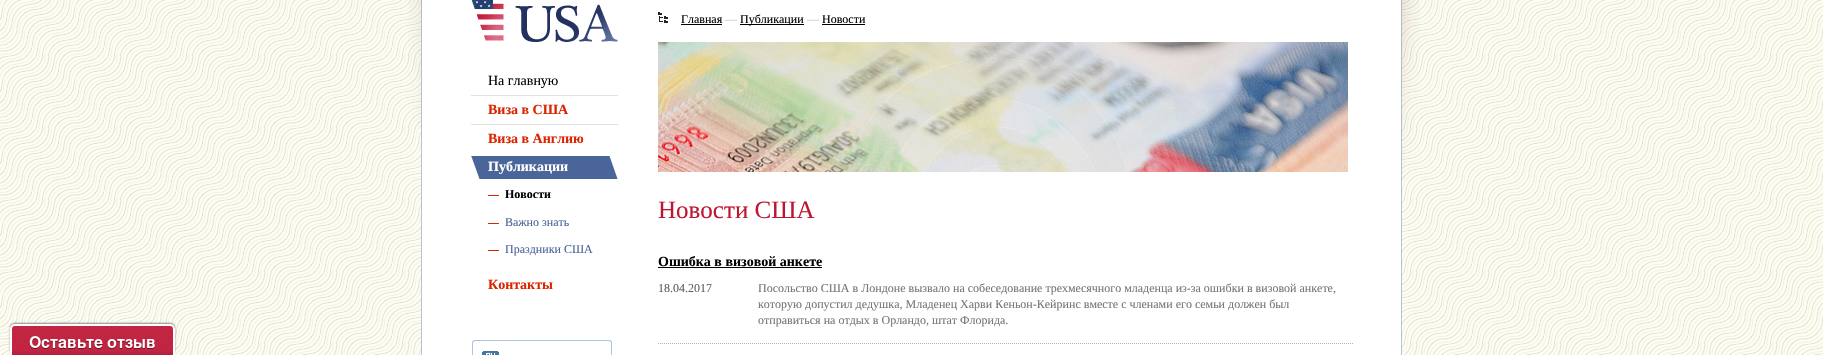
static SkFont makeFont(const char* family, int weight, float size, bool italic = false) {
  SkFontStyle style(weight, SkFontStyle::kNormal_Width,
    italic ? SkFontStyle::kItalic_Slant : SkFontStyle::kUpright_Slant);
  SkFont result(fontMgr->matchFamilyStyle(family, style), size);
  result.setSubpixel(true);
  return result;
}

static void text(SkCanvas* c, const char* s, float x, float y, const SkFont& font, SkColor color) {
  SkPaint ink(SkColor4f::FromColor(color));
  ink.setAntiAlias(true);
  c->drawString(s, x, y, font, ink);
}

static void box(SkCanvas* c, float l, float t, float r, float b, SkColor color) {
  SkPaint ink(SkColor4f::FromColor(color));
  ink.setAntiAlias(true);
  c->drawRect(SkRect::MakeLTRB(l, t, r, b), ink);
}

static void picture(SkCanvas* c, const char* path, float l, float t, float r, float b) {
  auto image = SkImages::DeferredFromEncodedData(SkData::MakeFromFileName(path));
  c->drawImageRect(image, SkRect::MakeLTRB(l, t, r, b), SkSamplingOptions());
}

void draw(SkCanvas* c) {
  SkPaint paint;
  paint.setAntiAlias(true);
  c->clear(0xffffffff);
  picture(c, "img_01.png", 0, 0, 1823, 355);
  box(c, 422, 0, 1401, 355, 0xffffffff);
  box(c, 1401, 0, 1402, 355, 0xffb2c4d5);
  box(c, 421, 0, 422, 355, 0xffb2c4d5);
  picture(c, "img_02.png", 408, 0, 422, 129);
  picture(c, "img_03.png", 471, 0, 618, 42);
  box(c, 471, 95, 618, 96, 0xffe2e2e2);
  SkFont face1 = makeFont("Liberation Serif", 400, 14);
  text(c, "На главную", 488, 85, face1, 0xff000000);
  box(c, 471, 124, 618, 125, 0xffe2e2e2);
  SkFont face2 = makeFont("Liberation Serif", 700, 14);
  text(c, "Виза в США", 488, 114, face2, 0xffdb2500);
  text(c, "Виза в Англию", 488, 143, face2, 0xffdb2500);
  picture(c, "img_04.png", 471, 153, 618, 179);
  text(c, "Публикации", 488, 171, face2, 0xffffffff);
  box(c, 488, 195, 499, 196, 0xffdb2500);
  SkFont face3 = makeFont("Liberation Serif", 700, 12);
  text(c, "Новости", 505, 198, face3, 0xff000000);
  box(c, 488, 223, 499, 224, 0xffdb2500);
  SkFont face4 = makeFont("Liberation Serif", 400, 12);
  text(c, "Важно знать", 505, 226, face4, 0xff4a6599);
  box(c, 488, 250, 499, 251, 0xffdb2500);
  text(c, "Праздники США", 505, 253, face4, 0xff4a6599);
  text(c, "Контакты", 488, 289, face2, 0xffdb2500);
  paint.setColor(0xffacc4dc);
  c->drawPath(SkPathBuilder(SkPathFillType::kEvenOdd).moveTo(475, 340).lineTo(609, 340).cubicTo(611, 340, 612, 341, 612, 343).lineTo(612, 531).lineTo(472, 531).lineTo(472, 343).cubicTo(472, 341, 473, 340, 475, 340).close().moveTo(475, 341).lineTo(609, 341).cubicTo(610, 341, 611, 342, 611, 343).lineTo(611, 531).lineTo(473, 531).lineTo(473, 343).cubicTo(473, 342, 474, 341, 475, 341).close().detach(), paint);
  picture(c, "img_05.png", 482, 351, 510, 355);
  picture(c, "img_06.png", 658, 12, 668, 23);
  text(c, "Главная", 681, 23, face4, 0xff000000);
  box(c, 681, 24, 722, 25, 0xff000000);
  text(c, "—", 725, 23, face4, 0xffcacaca);
  box(c, 740, 24, 804, 25, 0xff000000);
  text(c, "Публикации", 740, 23, face4, 0xff000000);
  text(c, "—", 807, 23, face4, 0xffcacaca);
  text(c, "Новости", 822, 23, face4, 0xff000000);
  box(c, 822, 24, 865, 25, 0xff000000);
  picture(c, "img_07.png", 658, 42, 1348, 172);
  SkFont face5 = makeFont("Liberation Serif", 400, 25);
  text(c, "Новости США", 658, 218, face5, 0xffbf1531);
  paint.setStyle(SkPaint::kStroke_Style);
  paint.setStrokeWidth(1);
  paint.setColor(0xffbdb497);
  paint.setPathEffect(SkDashPathEffect::Make({{1, 1}}, 0));
  c->drawPath(SkPathBuilder().moveTo(658, 343.5f).lineTo(1353, 343.5f).detach(), paint);
  paint.setPathEffect(nullptr);
  text(c, "Ошибка в визовой анкете", 658, 266, face2, 0xff000000);
  box(c, 658, 267, 822, 268, 0xff000000);
  text(c, "18.04.2017", 658, 292, face4, 0xff5e5e5e);
  text(c, "Посольство США в Лондоне вызвало на собеседование трехмесячного младенца из-за ошибки в визовой анкете,", 758, 292, face4, 0xff767676);
  text(c, "которую допустил дедушка, Младенец Харви Кеньон-Кейринс вместе с членами его семьи должен был", 758, 308, face4, 0xff767676);
  text(c, "отправиться на отдых в Орландо, штат Флорида.", 758, 324, face4, 0xff767676);
  picture(c, "img_08.png", 1401, 0, 1420, 179);
  paint.setStyle(SkPaint::kFill_Style);
  paint.setColor(0xff888888);
  paint.setMaskFilter(SkMaskFilter::MakeBlur(kNormal_SkBlurStyle, 1));
  c->drawRoundRect(SkRect::MakeLTRB(10, 323, 175, 354), 5, 5, paint);
  paint.setMaskFilter(nullptr);
  paint.setColor(0xffc22542);
  c->drawPath(SkPathBuilder().moveTo(15, 324).lineTo(170, 324).cubicTo(173, 324, 175, 326, 175, 329).lineTo(175, 355).lineTo(10, 355).lineTo(10, 329).cubicTo(10, 326, 12, 324, 15, 324).close().detach(), paint);
  picture(c, "img_09.png", 12, 351, 173, 355);
  paint.setColor(0xffffffff);
  c->drawPath(SkPathBuilder(SkPathFillType::kEvenOdd).moveTo(15, 324).lineTo(170, 324).cubicTo(173, 324, 175, 326, 175, 329).lineTo(175, 355).lineTo(10, 355).lineTo(10, 329).cubicTo(10, 326, 12, 324, 15, 324).close().moveTo(15, 326).lineTo(170, 326).cubicTo(172, 326, 173, 327, 173, 329).lineTo(173, 355).lineTo(12, 355).lineTo(12, 329).cubicTo(12, 327, 13, 326, 15, 326).close().detach(), paint);
  picture(c, "img_10.png", 29, 336, 155, 349);
}
